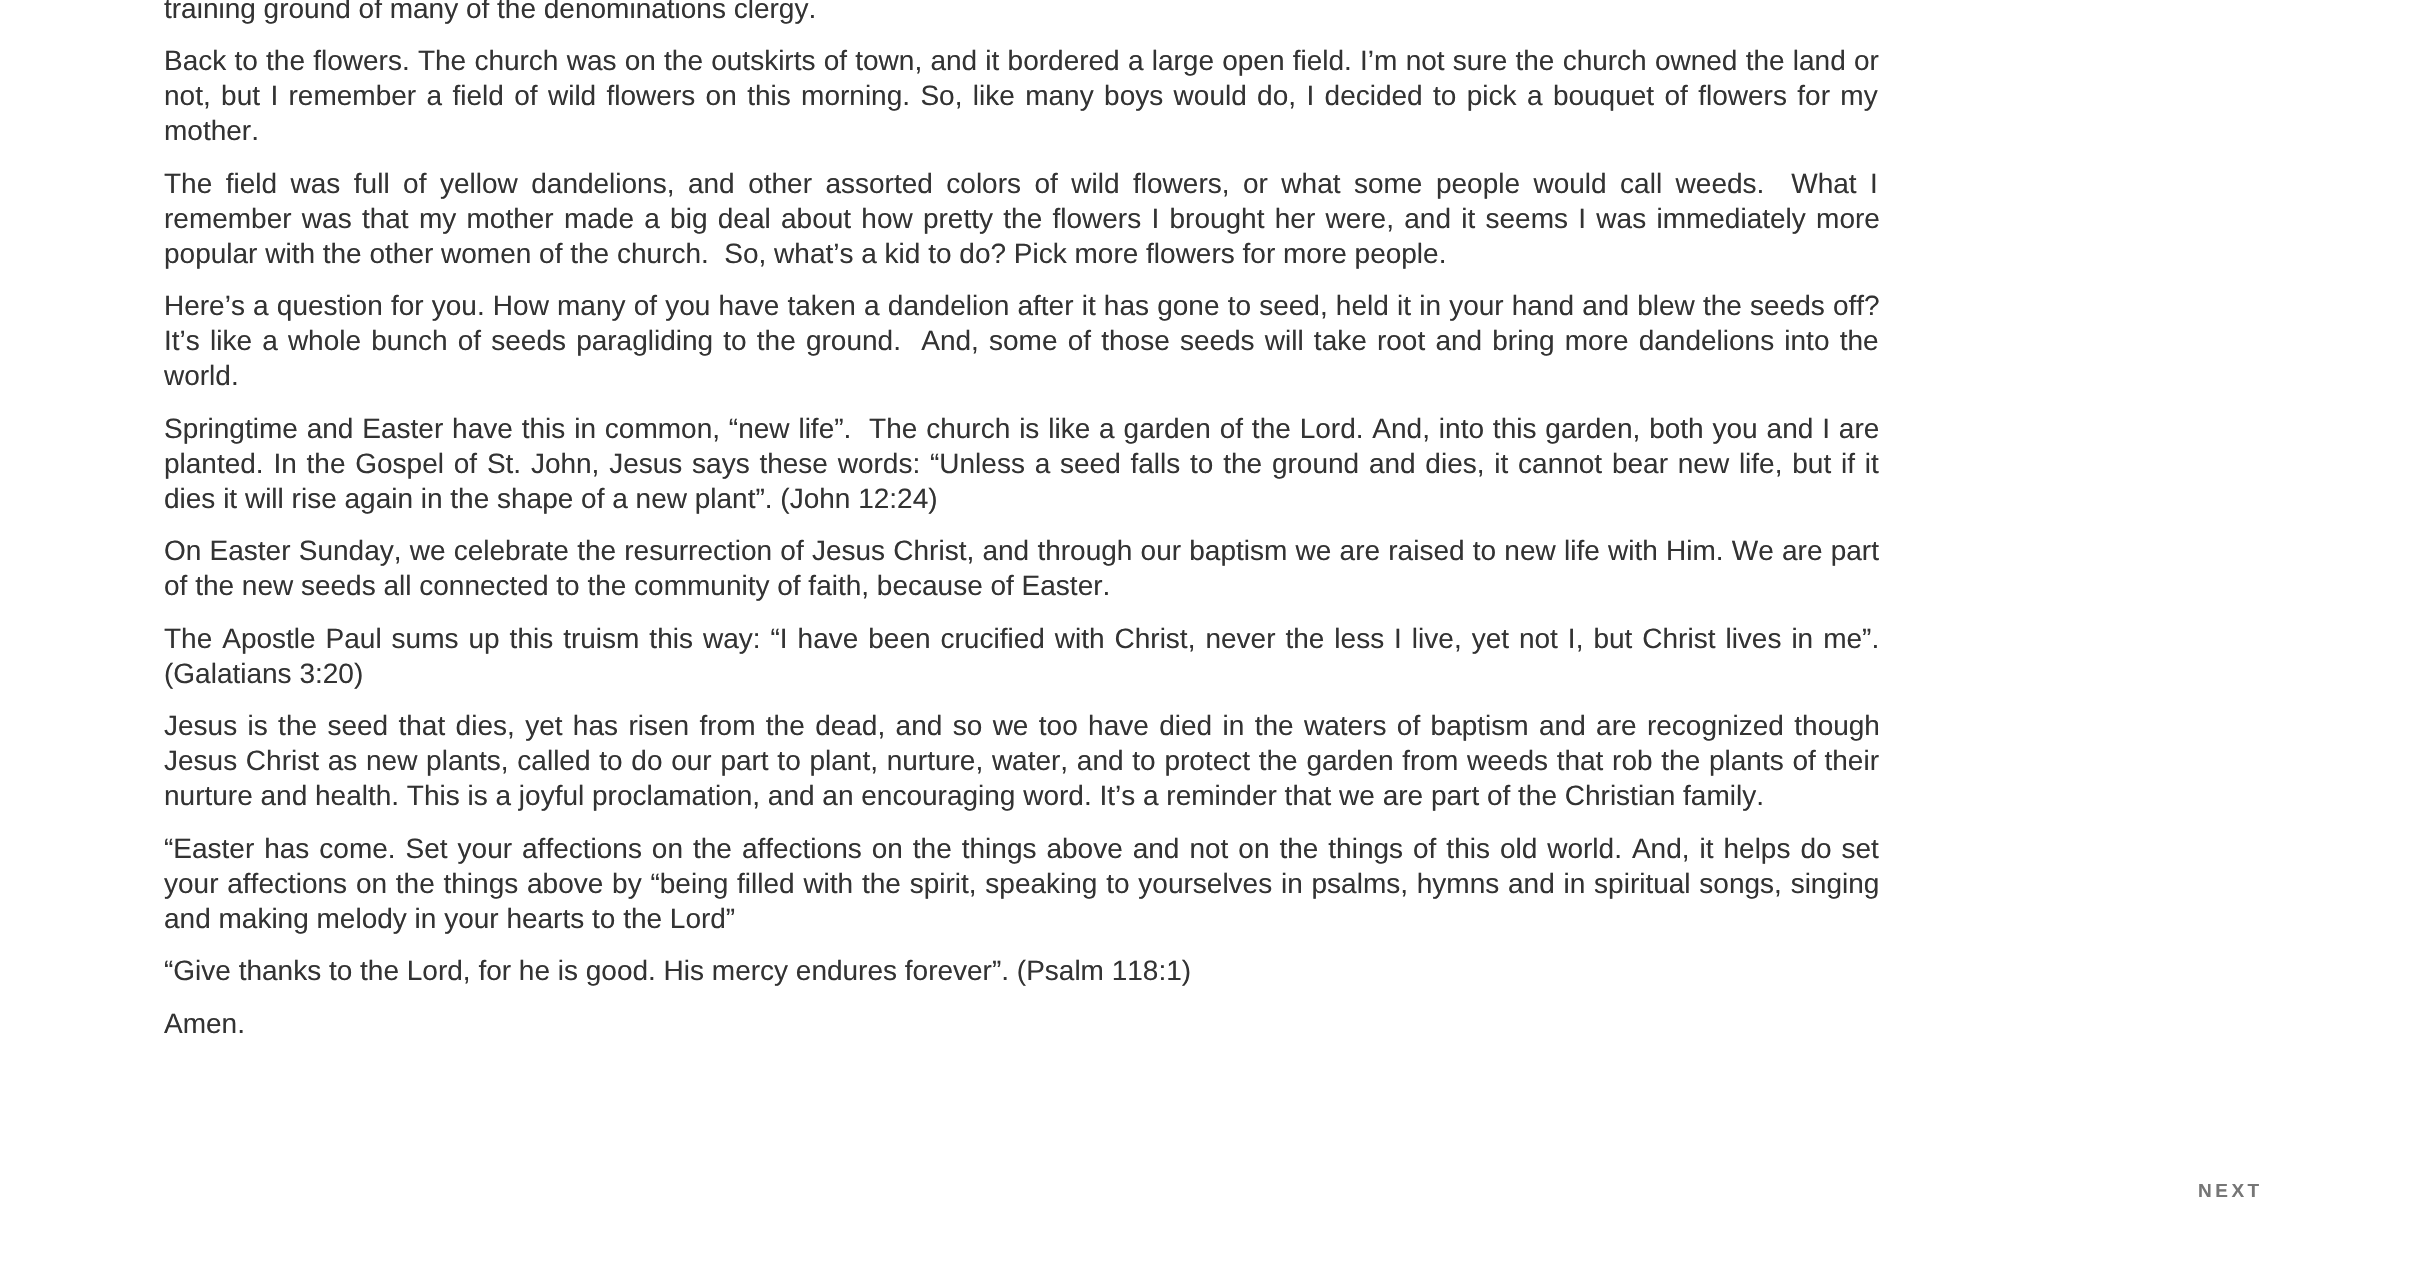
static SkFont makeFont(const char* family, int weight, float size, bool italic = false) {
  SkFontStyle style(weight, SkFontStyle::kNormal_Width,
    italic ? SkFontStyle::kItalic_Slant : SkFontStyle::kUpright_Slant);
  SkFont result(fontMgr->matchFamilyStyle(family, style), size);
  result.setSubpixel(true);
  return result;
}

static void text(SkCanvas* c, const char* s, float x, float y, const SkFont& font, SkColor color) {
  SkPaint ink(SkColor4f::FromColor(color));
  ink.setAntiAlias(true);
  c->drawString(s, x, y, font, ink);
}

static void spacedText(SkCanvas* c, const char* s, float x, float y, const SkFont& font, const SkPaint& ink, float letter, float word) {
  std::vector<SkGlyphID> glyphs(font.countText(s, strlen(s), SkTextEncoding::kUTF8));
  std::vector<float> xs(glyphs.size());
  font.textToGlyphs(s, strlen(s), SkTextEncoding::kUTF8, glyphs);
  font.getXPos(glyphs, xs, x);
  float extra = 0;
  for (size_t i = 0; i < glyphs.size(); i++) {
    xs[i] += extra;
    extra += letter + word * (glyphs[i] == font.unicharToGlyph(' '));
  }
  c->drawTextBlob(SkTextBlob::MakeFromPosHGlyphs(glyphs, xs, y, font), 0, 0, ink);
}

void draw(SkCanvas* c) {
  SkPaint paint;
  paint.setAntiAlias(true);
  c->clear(0xffffffff);
  SkFont face1 = makeFont("Liberation Sans", 400, 28);
  text(c, "training ground of many of the denominations clergy.", 164, 18, face1, 0xff333333);
  paint.setColor(0xff333333);
  spacedText(c, "Back to the flowers. The church was on the outskirts of town, and it bordered a large open field. I’m not sure the church owned the land or", 164, 70, face1, paint, 0, 0.45f);
  spacedText(c, "not, but I remember a field of wild flowers on this morning. So, like many boys would do, I decided to pick a bouquet of flowers for my", 164, 105, face1, paint, 0, 2.6f);
  text(c, "mother.", 164, 140, face1, 0xff333333);
  spacedText(c, "The field was full of yellow dandelions, and other assorted colors of wild flowers, or what some people would call weeds.  What I", 164, 193, face1, paint, 0, 5.7f);
  spacedText(c, "remember was that my mother made a big deal about how pretty the flowers I brought her were, and it seems I was immediately more", 164, 228, face1, paint, 0, 2.5f);
  text(c, "popular with the other women of the church.  So, what’s a kid to do? Pick more flowers for more people.", 164, 263, face1, 0xff333333);
  spacedText(c, "Here’s a question for you. How many of you have taken a dandelion after it has gone to seed, held it in your hand and blew the seeds off?", 164, 315, face1, paint, 0, 0.4f);
  spacedText(c, "It’s like a whole bunch of seeds paragliding to the ground.  And, some of those seeds will take root and bring more dandelions into the", 164, 350, face1, paint, 0, 2.4f);
  text(c, "world.", 164, 385, face1, 0xff333333);
  spacedText(c, "Springtime and Easter have this in common, “new life”.  The church is like a garden of the Lord. And, into this garden, both you and I are", 164, 438, face1, paint, 0, 1.1f);
  spacedText(c, "planted. In the Gospel of St. John, Jesus says these words: “Unless a seed falls to the ground and dies, it cannot bear new life, but if it", 164, 473, face1, paint, 0, 2);
  text(c, "dies it will rise again in the shape of a new plant”. (John 12:24)", 164, 508, face1, 0xff333333);
  spacedText(c, "On Easter Sunday, we celebrate the resurrection of Jesus Christ, and through our baptism we are raised to new life with Him. We are part", 164, 560, face1, paint, 0, 0.45f);
  text(c, "of the new seeds all connected to the community of faith, because of Easter.", 164, 595, face1, 0xff333333);
  spacedText(c, "The Apostle Paul sums up this truism this way: “I have been crucified with Christ, never the less I live, yet not I, but Christ lives in me”.", 164, 648, face1, paint, 0, 2.2f);
  text(c, "(Galatians 3:20)", 164, 683, face1, 0xff333333);
  spacedText(c, "Jesus is the seed that dies, yet has risen from the dead, and so we too have died in the waters of baptism and are recognized though", 164, 735, face1, paint, 0, 2.6f);
  spacedText(c, "Jesus Christ as new plants, called to do our part to plant, nurture, water, and to protect the garden from weeds that rob the plants of their", 164, 770, face1, paint, 0, 0.95f);
  text(c, "nurture and health. This is a joyful proclamation, and an encouraging word. It’s a reminder that we are part of the Christian family.", 164, 805, face1, 0xff333333);
  spacedText(c, "“Easter has come. Set your affections on the affections on the things above and not on the things of this old world. And, it helps do set", 164, 858, face1, paint, 0, 2.2f);
  spacedText(c, "your affections on the things above by “being filled with the spirit, speaking to yourselves in psalms, hymns and in spiritual songs, singing", 164, 893, face1, paint, 0, 1);
  text(c, "and making melody in your hearts to the Lord”", 164, 928, face1, 0xff333333);
  text(c, "“Give thanks to the Lord, for he is good. His mercy endures forever”. (Psalm 118:1)", 164, 980, face1, 0xff333333);
  text(c, "Amen.", 164, 1033, face1, 0xff333333);
  SkFont face2 = makeFont("Liberation Sans", 700, 19);
  paint.setColor(0xff767676);
  spacedText(c, "NEXT", 2198, 1197, face2, paint, 3.5f, 0);
}
